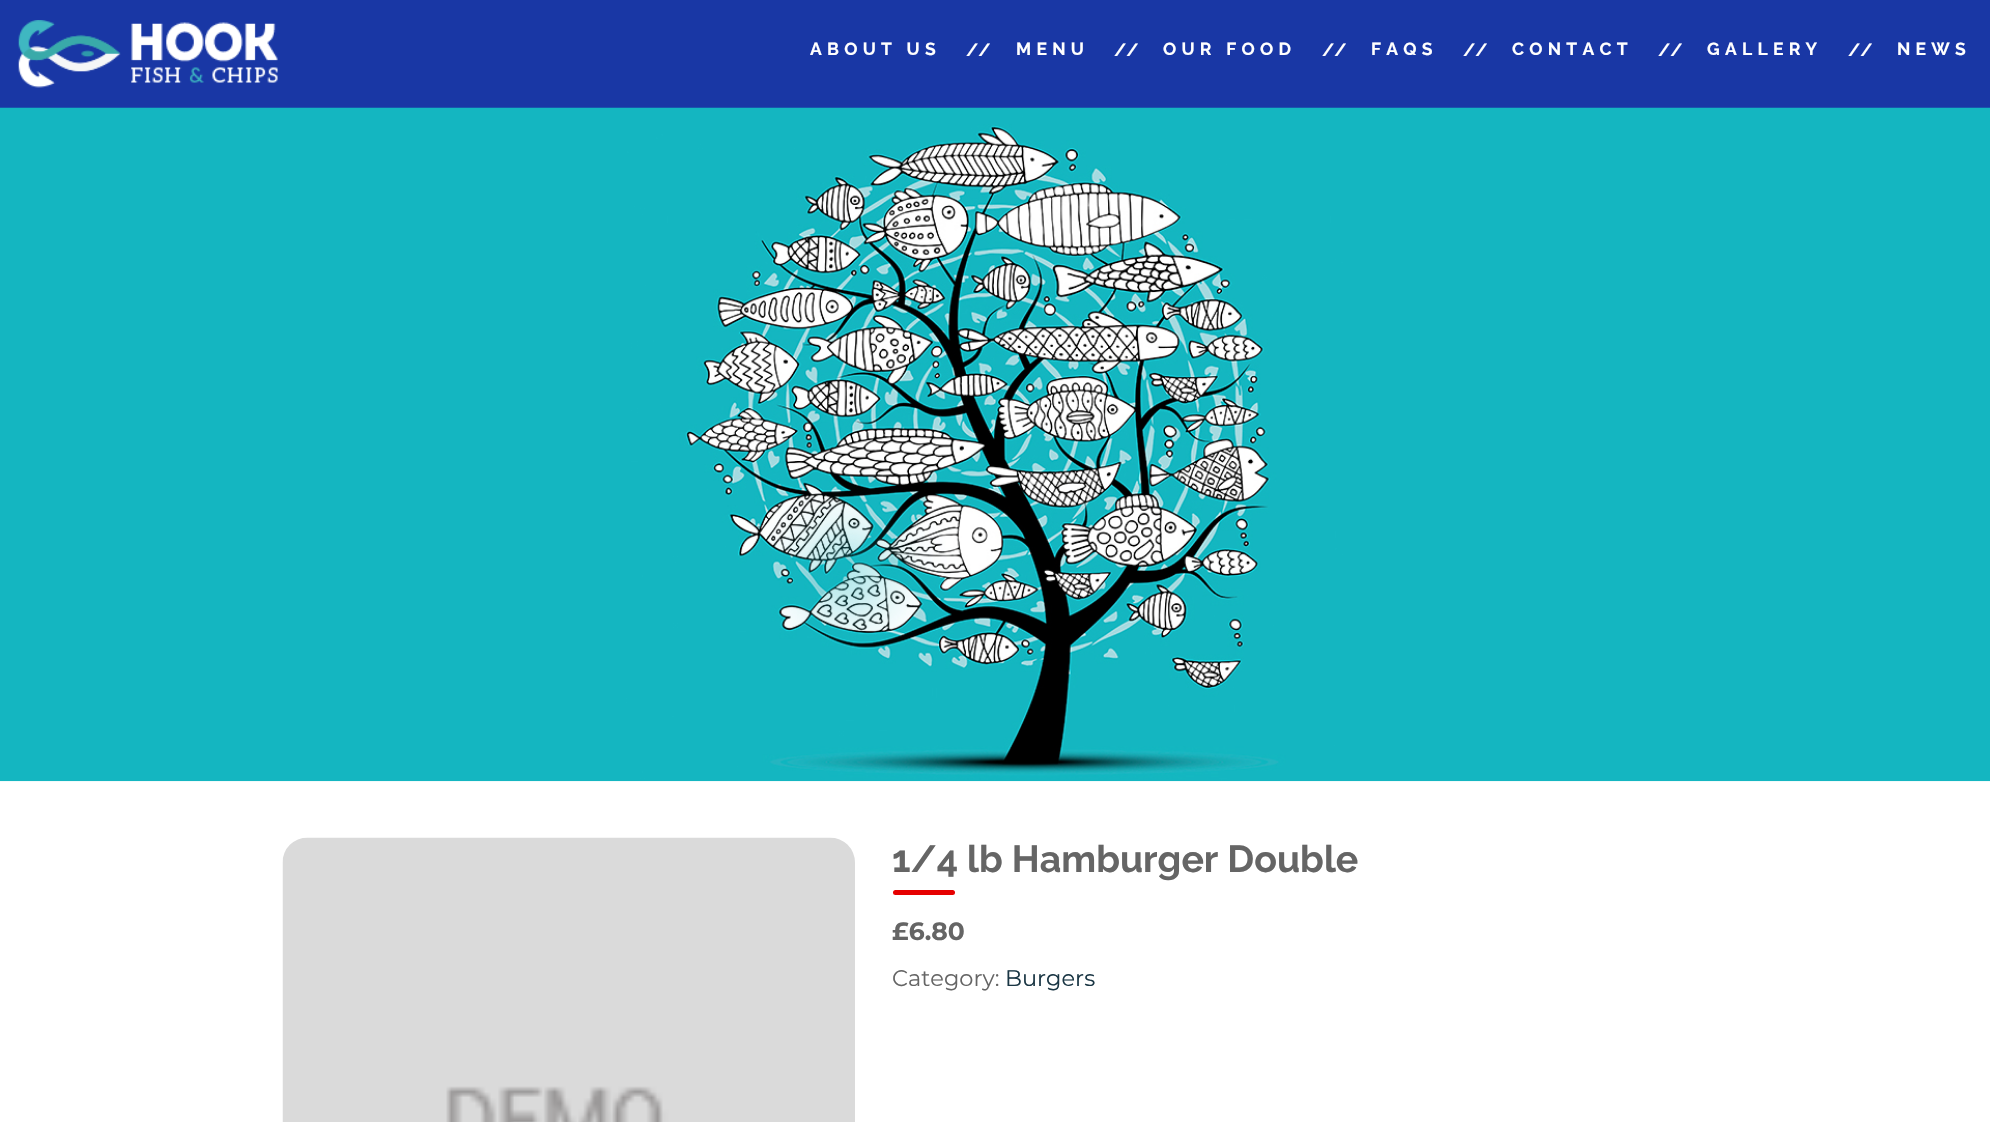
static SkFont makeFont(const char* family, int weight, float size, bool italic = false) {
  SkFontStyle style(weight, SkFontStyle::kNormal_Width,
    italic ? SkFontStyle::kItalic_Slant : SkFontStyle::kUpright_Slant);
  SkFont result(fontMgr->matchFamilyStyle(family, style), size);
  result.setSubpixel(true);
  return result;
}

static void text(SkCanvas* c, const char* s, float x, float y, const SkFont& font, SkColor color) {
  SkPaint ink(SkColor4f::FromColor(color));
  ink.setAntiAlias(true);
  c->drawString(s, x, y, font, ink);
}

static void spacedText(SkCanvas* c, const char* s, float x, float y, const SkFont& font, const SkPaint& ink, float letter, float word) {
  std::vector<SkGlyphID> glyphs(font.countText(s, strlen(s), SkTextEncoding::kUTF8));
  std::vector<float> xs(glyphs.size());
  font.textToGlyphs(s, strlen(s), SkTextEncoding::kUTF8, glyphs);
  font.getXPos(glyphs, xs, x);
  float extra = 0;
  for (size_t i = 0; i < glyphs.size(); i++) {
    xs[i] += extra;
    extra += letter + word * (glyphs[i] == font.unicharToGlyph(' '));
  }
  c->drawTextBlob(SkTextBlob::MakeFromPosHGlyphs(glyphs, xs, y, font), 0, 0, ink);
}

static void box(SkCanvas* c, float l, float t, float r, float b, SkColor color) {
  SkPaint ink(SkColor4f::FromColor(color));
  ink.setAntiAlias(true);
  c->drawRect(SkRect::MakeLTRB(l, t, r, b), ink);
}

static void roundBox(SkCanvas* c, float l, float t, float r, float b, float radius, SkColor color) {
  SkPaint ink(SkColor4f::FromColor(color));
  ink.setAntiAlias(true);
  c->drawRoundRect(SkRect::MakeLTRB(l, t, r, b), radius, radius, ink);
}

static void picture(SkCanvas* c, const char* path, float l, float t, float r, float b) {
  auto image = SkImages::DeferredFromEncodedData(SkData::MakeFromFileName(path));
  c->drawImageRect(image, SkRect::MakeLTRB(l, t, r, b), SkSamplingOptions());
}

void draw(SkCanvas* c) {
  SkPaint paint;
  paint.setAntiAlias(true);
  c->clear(0xffffffff);
  box(c, 0, 0, 1990, 108, 0xff1937a5);
  picture(c, "img_01.png", 18, 20, 278, 88);
  SkFont face1 = makeFont("Raleway", 700, 17.5f);
  paint.setColor(0xffffffff);
  spacedText(c, "ABOUT US", 810, 55, face1, paint, 5.25f, 0);
  text(c, "//", 966, 56, face1, 0xffffffff);
  spacedText(c, "MENU", 1016, 55, face1, paint, 5.25f, 0);
  text(c, "//", 1114, 56, face1, 0xffffffff);
  spacedText(c, "OUR FOOD", 1163, 55, face1, paint, 5.25f, 0);
  text(c, "//", 1322, 56, face1, 0xffffffff);
  spacedText(c, "FAQS", 1371, 55, face1, paint, 5.25f, 0);
  text(c, "//", 1463, 56, face1, 0xffffffff);
  spacedText(c, "CONTACT", 1512, 55, face1, paint, 5.25f, 0);
  text(c, "//", 1658, 56, face1, 0xffffffff);
  spacedText(c, "GALLERY", 1707, 55, face1, paint, 5.25f, 0);
  text(c, "//", 1848, 56, face1, 0xffffffff);
  spacedText(c, "NEWS", 1897, 55, face1, paint, 5.25f, 0);
  picture(c, "img_02.png", 0, 107, 1990, 782);
  picture(c, "img_03.png", 282, 837, 855, 1122);
  SkFont face2 = makeFont("Raleway", 700, 37.5f);
  text(c, "1/4 lb Hamburger Double", 892, 872, face2, 0xff656565);
  roundBox(c, 893, 890, 955, 895, 2.5f, 0xffe60000);
  SkFont face3 = makeFont("Montserrat", 700, 25);
  text(c, "£6.80", 892, 940, face3, 0xff656565);
  SkFont face4 = makeFont("Montserrat", 400, 22.5f);
  text(c, "Category:", 892, 986, face4, 0xff656565);
  text(c, "Burgers", 1005, 986, face4, 0xff1a3644);
}
